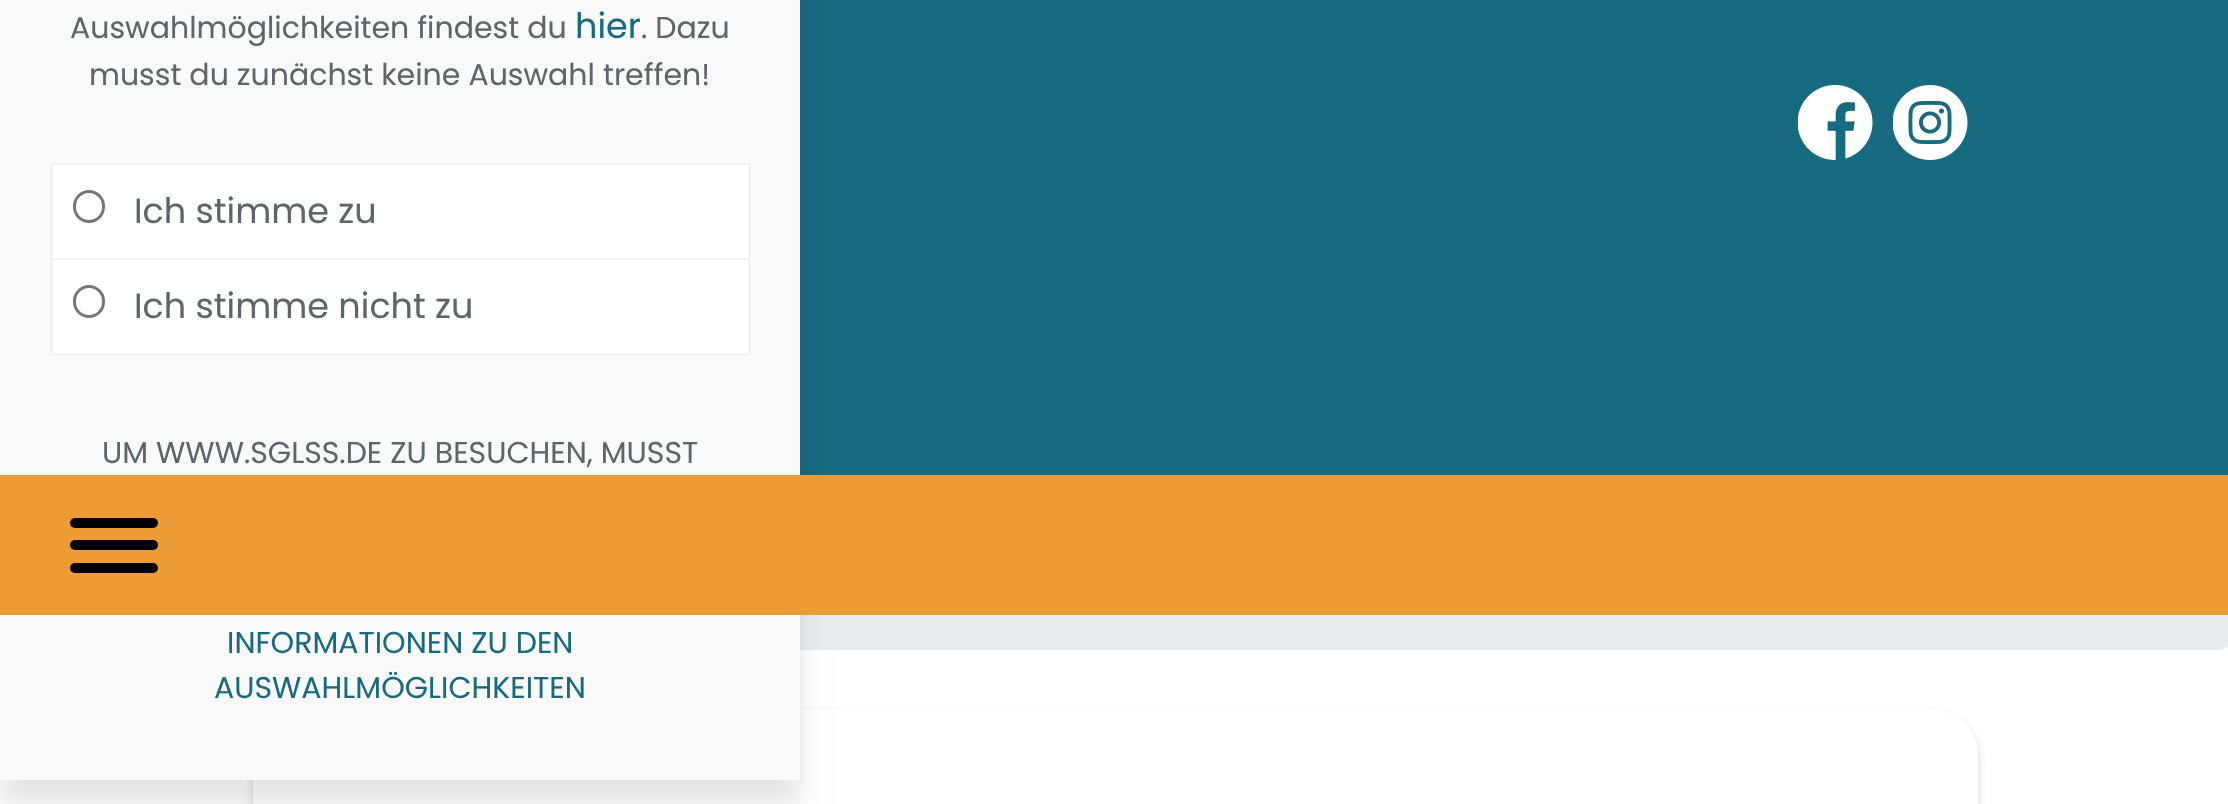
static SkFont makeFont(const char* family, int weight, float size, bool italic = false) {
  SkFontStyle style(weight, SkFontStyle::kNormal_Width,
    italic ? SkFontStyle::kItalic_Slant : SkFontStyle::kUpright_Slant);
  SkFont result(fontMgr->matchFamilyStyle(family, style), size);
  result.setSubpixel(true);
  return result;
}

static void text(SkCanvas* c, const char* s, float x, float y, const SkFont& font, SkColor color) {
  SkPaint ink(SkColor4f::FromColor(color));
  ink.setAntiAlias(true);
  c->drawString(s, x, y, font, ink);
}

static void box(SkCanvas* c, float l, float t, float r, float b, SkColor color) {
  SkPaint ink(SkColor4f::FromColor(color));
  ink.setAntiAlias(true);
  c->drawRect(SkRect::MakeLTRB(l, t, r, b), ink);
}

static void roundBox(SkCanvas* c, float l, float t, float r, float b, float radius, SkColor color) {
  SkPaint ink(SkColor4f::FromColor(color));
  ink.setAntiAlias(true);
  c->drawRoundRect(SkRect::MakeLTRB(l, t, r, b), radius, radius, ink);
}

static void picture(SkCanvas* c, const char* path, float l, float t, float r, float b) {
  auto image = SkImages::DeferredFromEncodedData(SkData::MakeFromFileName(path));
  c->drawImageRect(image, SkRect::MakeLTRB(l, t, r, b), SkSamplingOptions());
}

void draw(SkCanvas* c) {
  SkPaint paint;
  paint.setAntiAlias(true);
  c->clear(0xffffffff);
  box(c, 800, 0, 2228, 475, 0xff166b80);
  picture(c, "img_01.png", 1798, 85, 1873, 160);
  picture(c, "img_02.png", 1893, 85, 1968, 160);
  roundBox(c, 0, 530, 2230, 650, 10, 0xffe9ecef);
  paint.setColor(0x455a6169);
  paint.setMaskFilter(SkMaskFilter::MakeBlur(kNormal_SkBlurStyle, 5));
  c->drawRoundRect(SkRect::MakeLTRB(253, 715, 1978, 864), 45, 45, paint);
  paint.setMaskFilter(nullptr);
  roundBox(c, 253, 710, 1978, 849, 45, 0xffffffff);
  paint.setColor(0x1a000000);
  paint.setMaskFilter(SkMaskFilter::MakeBlur(kNormal_SkBlurStyle, 12.5f));
  c->drawRect(SkRect::MakeLTRB(0, -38, 800, 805), paint);
  paint.setMaskFilter(nullptr);
  box(c, 0, 0, 800, 780, 0xfff9f9f9);
  box(c, 0, 475, 2228, 615, 0xffed9c35);
  roundBox(c, 70, 518, 158, 528, 5, 0xff000000);
  roundBox(c, 70, 540, 158, 550, 5, 0xff000000);
  roundBox(c, 70, 563, 158, 573, 5, 0xff000000);
  SkFont face1 = makeFont("Poppins", 400, 30);
  text(c, "Auswahlmöglichkeiten findest du", 70, 38, face1, 0xff606569);
  SkFont face2 = makeFont("Poppins", 400, 35);
  text(c, "hier", 575, 38, face2, 0xff166b80);
  text(c, ". Dazu", 641, 38, face1, 0xff606569);
  text(c, "musst du zunächst keine Auswahl treffen!", 89, 85, face1, 0xff606569);
  box(c, 50, 163, 750, 165, 0xfff2f2f2);
  box(c, 748, 163, 751, 355, 0xfff2f2f2);
  box(c, 50, 163, 53, 355, 0xfff2f2f2);
  box(c, 53, 165, 748, 258, 0xffffffff);
  box(c, 53, 258, 748, 260, 0xfff2f2f2);
  paint.setStyle(SkPaint::kStroke_Style);
  paint.setStrokeWidth(3);
  paint.setColor(0xff767676);
  c->drawRoundRect(SkRect::MakeLTRB(74.5f, 191.5f, 103.5f, 221.5f), 14.5f, 14.5f, paint);
  text(c, "Ich stimme zu", 134, 223, face2, 0xff606569);
  box(c, 53, 260, 748, 353, 0xffffffff);
  box(c, 53, 353, 748, 356, 0xfff2f2f2);
  c->drawRoundRect(SkRect::MakeLTRB(74.5f, 286.5f, 103.5f, 316.5f), 14.5f, 14.5f, paint);
  text(c, "Ich stimme nicht zu", 134, 318, face2, 0xff606569);
  text(c, "UM WWW.SGLSS.DE ZU BESUCHEN, MUSST", 102, 463, face1, 0xff606569);
  text(c, "INFORMATIONEN ZU DEN", 227, 653, face1, 0xff166b80);
  text(c, "AUSWAHLMÖGLICHKEITEN", 214, 698, face1, 0xff166b80);
}
